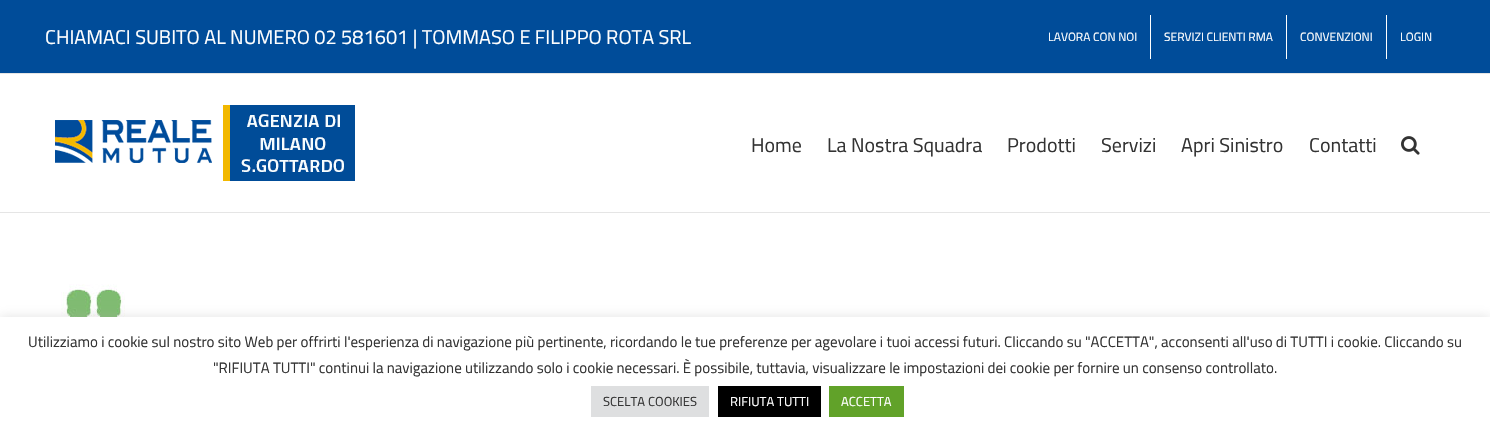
static SkFont makeFont(const char* family, int weight, float size, bool italic = false) {
  SkFontStyle style(weight, SkFontStyle::kNormal_Width,
    italic ? SkFontStyle::kItalic_Slant : SkFontStyle::kUpright_Slant);
  SkFont result(fontMgr->matchFamilyStyle(family, style), size);
  result.setSubpixel(true);
  return result;
}

static void text(SkCanvas* c, const char* s, float x, float y, const SkFont& font, SkColor color) {
  SkPaint ink(SkColor4f::FromColor(color));
  ink.setAntiAlias(true);
  c->drawString(s, x, y, font, ink);
}

static void box(SkCanvas* c, float l, float t, float r, float b, SkColor color) {
  SkPaint ink(SkColor4f::FromColor(color));
  ink.setAntiAlias(true);
  c->drawRect(SkRect::MakeLTRB(l, t, r, b), ink);
}

static void picture(SkCanvas* c, const char* path, float l, float t, float r, float b) {
  auto image = SkImages::DeferredFromEncodedData(SkData::MakeFromFileName(path));
  c->drawImageRect(image, SkRect::MakeLTRB(l, t, r, b), SkSamplingOptions());
}

void draw(SkCanvas* c) {
  SkPaint paint;
  paint.setAntiAlias(true);
  c->clear(0xffffffff);
  box(c, 0, 0, 1490, 73, 0xff004c99);
  box(c, 0, 73, 1490, 74, 0xffe5e5e5);
  SkFont face1 = makeFont("Titillium Web", 400, 20);
  text(c, "CHIAMACI SUBITO AL NUMERO 02 581601 | TOMMASO E FILIPPO ROTA SRL", 45, 44, face1, 0xffffffff);
  SkFont face2 = makeFont("Titillium Web", 400, 12);
  text(c, "LAVORA CON NOI", 1048, 41, face2, 0xffffffff);
  box(c, 1150, 15, 1151, 59, 0xffffffff);
  text(c, "SERVIZI CLIENTI RMA", 1164, 41, face2, 0xffffffff);
  box(c, 1286, 15, 1287, 59, 0xffffffff);
  text(c, "CONVENZIONI", 1300, 41, face2, 0xffffffff);
  box(c, 1386, 15, 1387, 59, 0xffffffff);
  text(c, "LOGIN", 1400, 41, face2, 0xffffffff);
  box(c, 0, 212, 1490, 213, 0xffe5e5e5);
  picture(c, "img_01.png", 55, 105, 355, 181);
  text(c, "Home", 751, 152, face1, 0xff333333);
  text(c, "La Nostra Squadra", 827, 152, face1, 0xff333333);
  text(c, "Prodotti", 1007, 152, face1, 0xff333333);
  text(c, "Servizi", 1101, 152, face1, 0xff333333);
  text(c, "Apri Sinistro", 1181, 152, face1, 0xff333333);
  text(c, "Contatti", 1309, 152, face1, 0xff333333);
  picture(c, "img_02.png", 1401, 136, 1420, 155);
  picture(c, "img_03.png", 45, 284, 141, 317);
  paint.setColor(0x4dacabab);
  paint.setMaskFilter(SkMaskFilter::MakeBlur(kNormal_SkBlurStyle, 5));
  c->drawRect(SkRect::MakeLTRB(0, 316, 1490, 428), paint);
  paint.setMaskFilter(nullptr);
  box(c, 0, 317, 1490, 429, 0xffffffff);
  SkFont face3 = makeFont("Titillium Web", 400, 15);
  text(c, "Utilizziamo i cookie sul nostro sito Web per offrirti l'esperienza di navigazione più pertinente, ricordando le tue preferenze per agevolare i tuoi accessi futuri. Cliccando su \"ACCETTA\", acconsenti all'uso di TUTTI i cookie. Cliccando su", 28, 347, face3, 0xff333333);
  text(c, "\"RIFIUTA TUTTI\" continui la navigazione utilizzando solo i cookie necessari. È possibile, tuttavia, visualizzare le impostazioni dei cookie per fornire un consenso controllato.", 213, 373, face3, 0xff333333);
  box(c, 591, 386, 709, 417, 0xffdedfe0);
  SkFont face4 = makeFont("Titillium Web", 400, 13);
  text(c, "SCELTA COOKIES", 603, 406, face4, 0xff333333);
  box(c, 718, 386, 821, 417, 0xff000000);
  text(c, "RIFIUTA TUTTI", 730, 406, face4, 0xffffffff);
  box(c, 829, 386, 904, 417, 0xff61a229);
  text(c, "ACCETTA", 841, 406, face4, 0xffffffff);
}
